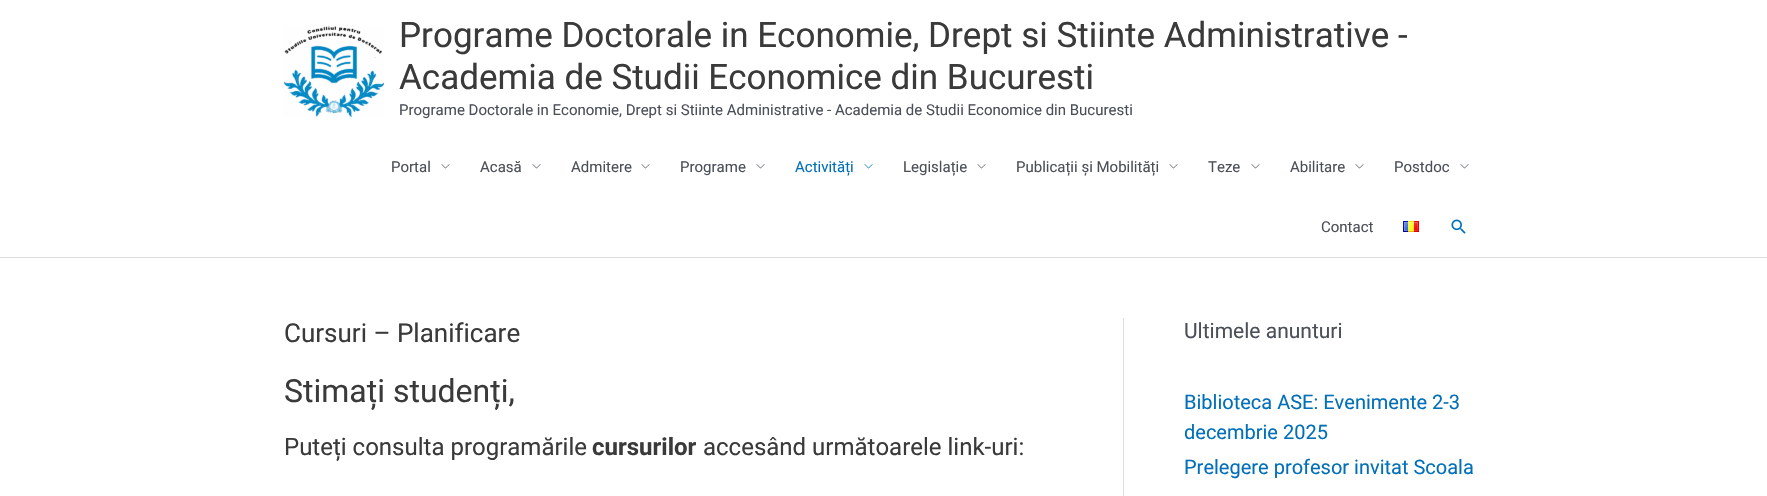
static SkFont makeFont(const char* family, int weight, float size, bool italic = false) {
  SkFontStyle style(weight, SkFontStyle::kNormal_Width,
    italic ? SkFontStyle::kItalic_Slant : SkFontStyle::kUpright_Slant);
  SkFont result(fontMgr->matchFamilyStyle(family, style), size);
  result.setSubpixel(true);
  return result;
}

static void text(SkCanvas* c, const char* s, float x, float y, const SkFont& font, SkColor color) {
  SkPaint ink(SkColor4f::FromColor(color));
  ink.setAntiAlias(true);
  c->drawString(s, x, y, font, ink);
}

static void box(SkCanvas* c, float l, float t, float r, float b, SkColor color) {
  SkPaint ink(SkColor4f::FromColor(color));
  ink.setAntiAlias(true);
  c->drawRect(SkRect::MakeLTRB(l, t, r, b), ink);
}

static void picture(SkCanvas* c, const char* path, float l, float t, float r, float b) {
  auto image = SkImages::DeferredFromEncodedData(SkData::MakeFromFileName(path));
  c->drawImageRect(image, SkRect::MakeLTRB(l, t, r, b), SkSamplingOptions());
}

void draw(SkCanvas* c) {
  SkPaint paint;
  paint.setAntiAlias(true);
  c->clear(0xffffffff);
  box(c, 0, 257, 1767, 258, 0xffdddddd);
  picture(c, "img_01.png", 284, 26, 384, 117);
  SkFont face1 = makeFont("Roboto", 400, 35);
  text(c, "Programe Doctorale in Economie, Drept si Stiinte Administrative -", 399, 47, face1, 0xff3a3a3a);
  text(c, "Academia de Studii Economice din Bucuresti", 399, 89, face1, 0xff3a3a3a);
  SkFont face2 = makeFont("Roboto", 400, 15);
  text(c, "Programe Doctorale in Economie, Drept si Stiinte Administrative - Academia de Studii Economice din Bucuresti", 399, 115, face2, 0xff4b4f58);
  text(c, "Portal", 391, 172, face2, 0xff4b4f58);
  picture(c, "img_02.png", 441, 164, 450, 169);
  text(c, "Acasă", 480, 172, face2, 0xff4b4f58);
  picture(c, "img_02.png", 532, 164, 541, 169);
  text(c, "Admitere", 571, 172, face2, 0xff4b4f58);
  picture(c, "img_02.png", 641, 164, 650, 169);
  text(c, "Programe", 680, 172, face2, 0xff4b4f58);
  picture(c, "img_02.png", 756, 164, 765, 169);
  text(c, "Activități", 795, 172, face2, 0xff0170b9);
  picture(c, "img_03.png", 864, 164, 873, 169);
  text(c, "Legislație", 903, 172, face2, 0xff4b4f58);
  picture(c, "img_02.png", 977, 164, 986, 169);
  text(c, "Publicații și Mobilități", 1016, 172, face2, 0xff4b4f58);
  picture(c, "img_02.png", 1169, 164, 1178, 169);
  text(c, "Teze", 1208, 172, face2, 0xff4b4f58);
  picture(c, "img_02.png", 1251, 164, 1260, 169);
  text(c, "Abilitare", 1290, 172, face2, 0xff4b4f58);
  picture(c, "img_02.png", 1355, 164, 1364, 169);
  text(c, "Postdoc", 1394, 172, face2, 0xff4b4f58);
  picture(c, "img_02.png", 1460, 164, 1469, 169);
  text(c, "Contact", 1321, 232, face2, 0xff4b4f58);
  picture(c, "img_04.png", 1403, 221, 1419, 232);
  picture(c, "img_05.png", 1451, 219, 1466, 234);
  box(c, 1123, 318, 1124, 496, 0xffdddddd);
  SkFont face3 = makeFont("Roboto", 400, 26);
  text(c, "Cursuri – Planificare", 284, 342, face3, 0xff3a3a3a);
  SkFont face4 = makeFont("Roboto", 400, 32);
  text(c, "Stimați studenți,", 284, 402, face4, 0xff3a3a3a);
  SkFont face5 = makeFont("Roboto", 400, 24);
  text(c, "Puteți consulta programările", 284, 455, face5, 0xff3a3a3a);
  SkFont face6 = makeFont("Roboto", 700, 24);
  text(c, "cursurilor", 592, 455, face6, 0xff3a3a3a);
  text(c, "accesând următoarele link-uri:", 703, 455, face5, 0xff3a3a3a);
  SkFont face7 = makeFont("Roboto", 400, 21);
  text(c, "Ultimele anunturi", 1184, 338, face7, 0xff4b4f58);
  SkFont face8 = makeFont("Roboto", 400, 20);
  text(c, "Biblioteca ASE: Evenimente 2-3", 1184, 409, face8, 0xff0170b9);
  text(c, "decembrie 2025", 1184, 439, face8, 0xff0170b9);
  text(c, "Prelegere profesor invitat Scoala", 1184, 474, face8, 0xff0170b9);
}
